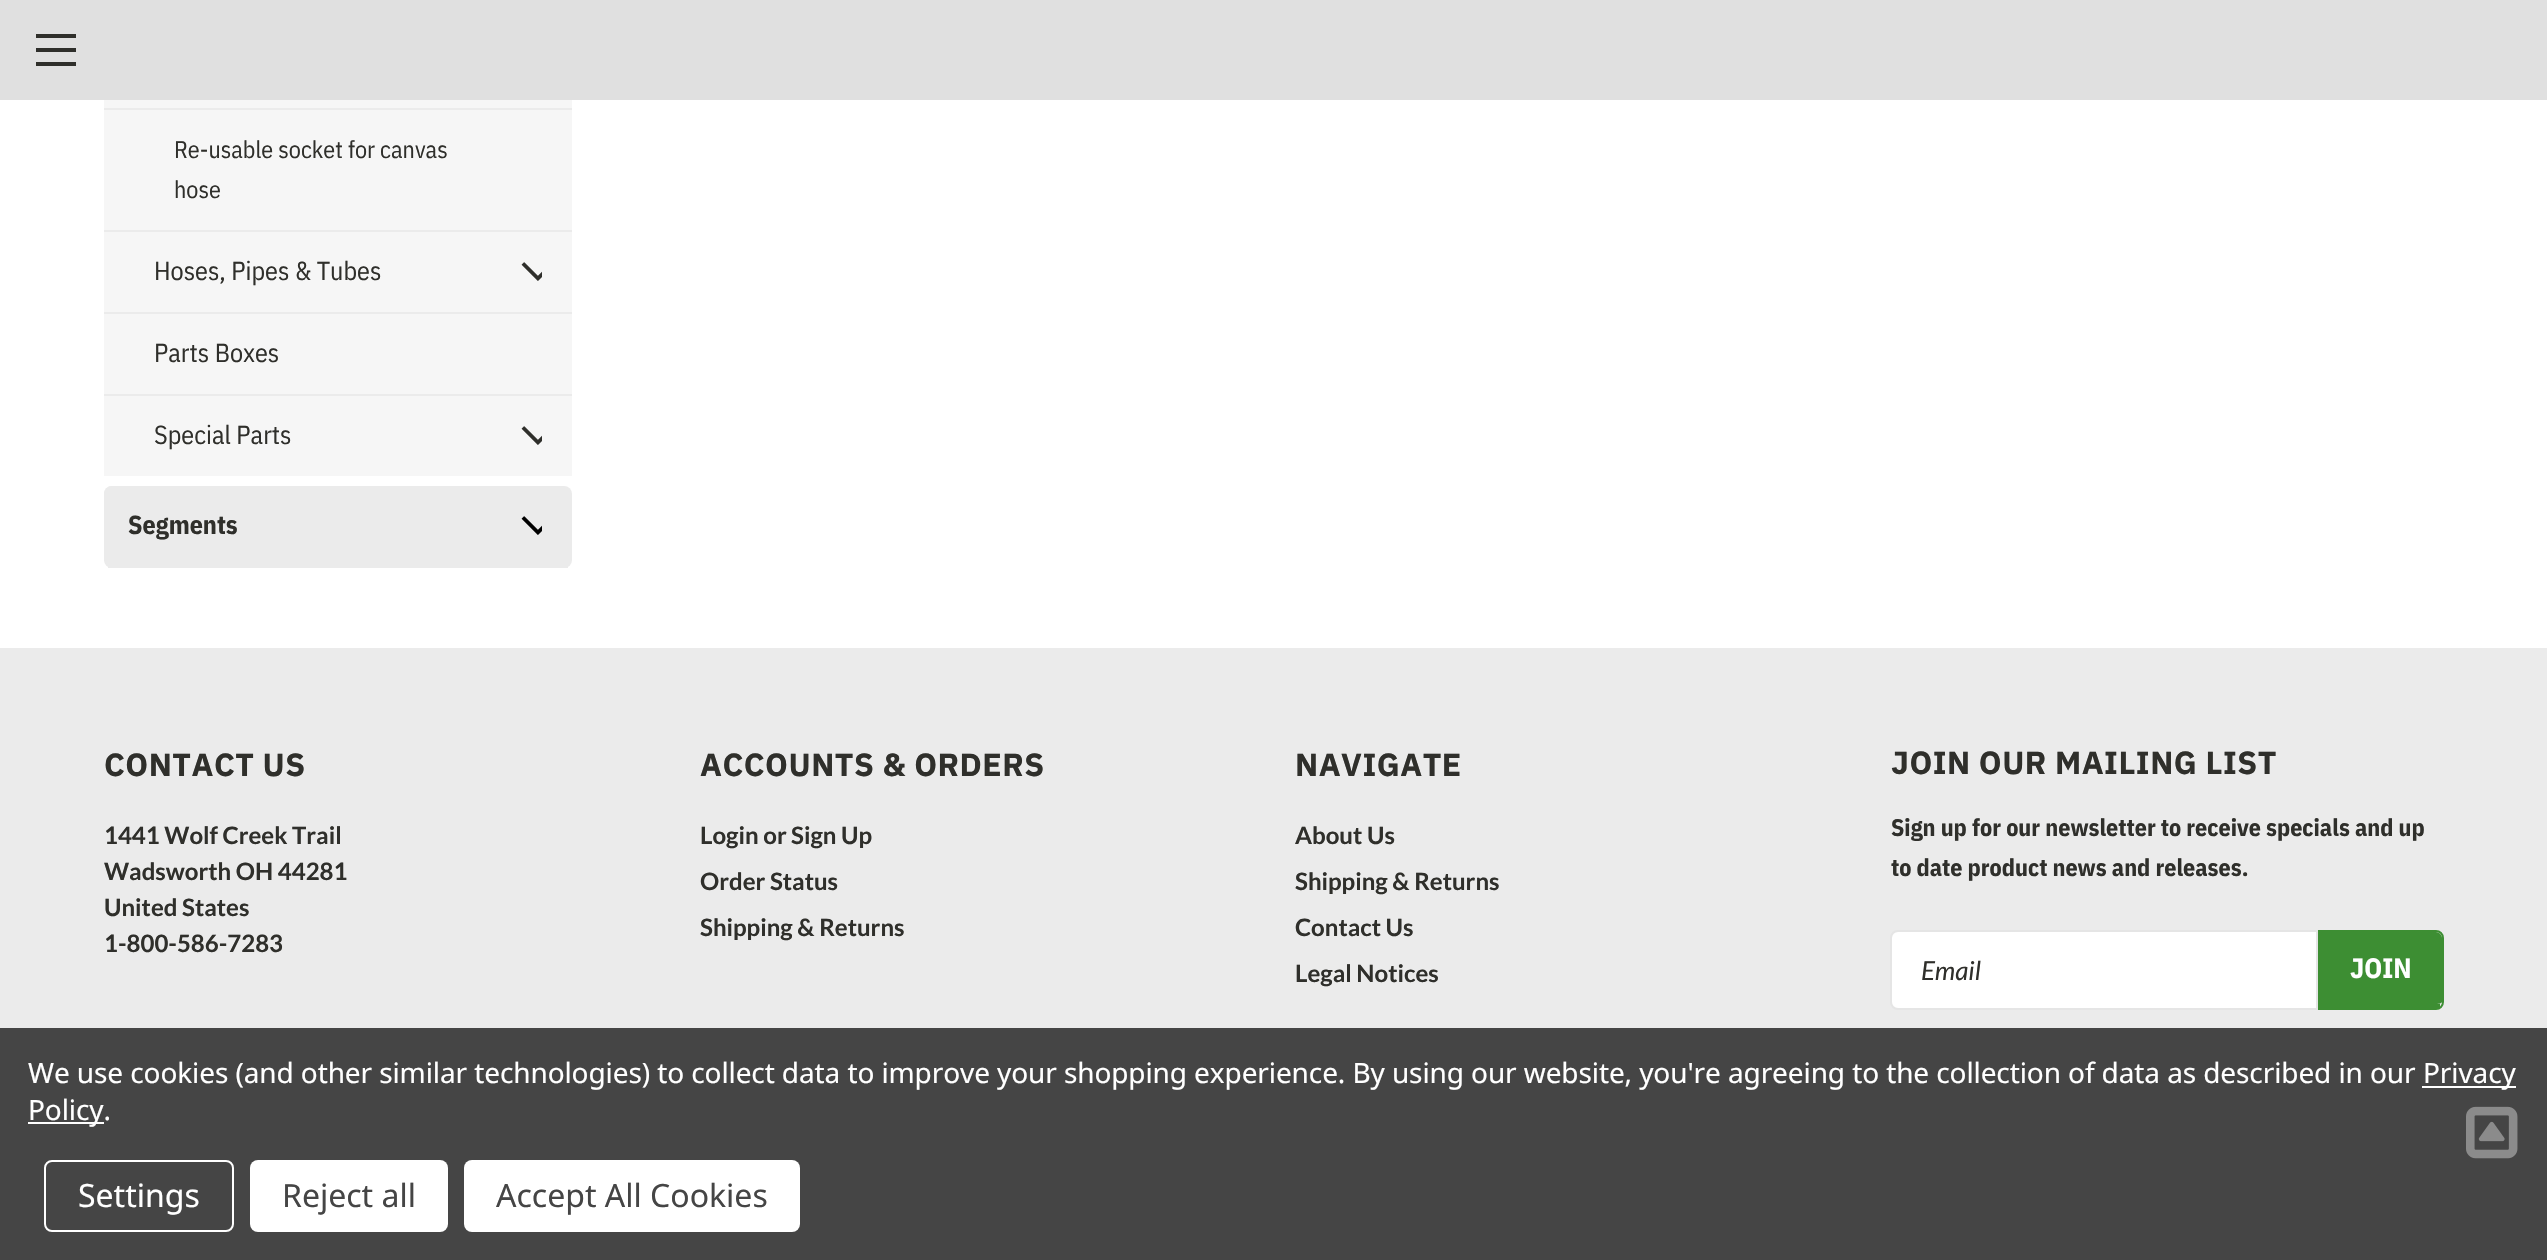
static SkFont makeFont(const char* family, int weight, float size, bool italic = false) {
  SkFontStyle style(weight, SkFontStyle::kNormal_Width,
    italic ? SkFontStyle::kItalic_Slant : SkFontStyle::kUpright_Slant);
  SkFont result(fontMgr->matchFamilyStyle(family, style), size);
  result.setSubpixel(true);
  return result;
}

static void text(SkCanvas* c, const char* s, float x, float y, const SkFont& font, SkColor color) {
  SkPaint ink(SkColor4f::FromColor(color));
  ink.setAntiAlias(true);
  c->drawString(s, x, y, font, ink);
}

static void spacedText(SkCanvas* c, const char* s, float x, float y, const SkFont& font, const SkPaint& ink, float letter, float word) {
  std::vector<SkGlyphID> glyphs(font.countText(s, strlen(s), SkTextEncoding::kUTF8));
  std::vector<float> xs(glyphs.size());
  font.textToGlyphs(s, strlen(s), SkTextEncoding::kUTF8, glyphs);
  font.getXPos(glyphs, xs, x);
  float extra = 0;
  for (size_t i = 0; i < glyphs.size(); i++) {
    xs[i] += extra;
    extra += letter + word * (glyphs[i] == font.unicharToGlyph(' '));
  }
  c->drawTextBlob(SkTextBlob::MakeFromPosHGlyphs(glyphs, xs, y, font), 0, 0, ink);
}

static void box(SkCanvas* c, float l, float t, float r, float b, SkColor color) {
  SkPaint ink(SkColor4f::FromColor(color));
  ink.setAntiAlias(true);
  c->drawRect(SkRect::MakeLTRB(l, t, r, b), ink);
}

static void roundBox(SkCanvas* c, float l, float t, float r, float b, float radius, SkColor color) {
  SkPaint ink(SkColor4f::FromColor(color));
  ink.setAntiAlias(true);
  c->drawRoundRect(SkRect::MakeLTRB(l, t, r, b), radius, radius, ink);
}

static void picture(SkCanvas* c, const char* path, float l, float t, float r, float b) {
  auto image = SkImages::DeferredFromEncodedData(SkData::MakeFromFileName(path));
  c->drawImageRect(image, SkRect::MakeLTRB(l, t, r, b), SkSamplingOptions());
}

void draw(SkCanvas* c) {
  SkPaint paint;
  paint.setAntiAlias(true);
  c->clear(0xffffffff);
  box(c, 0, 0, 2547, 100, 0xffe0e0e0);
  box(c, 36, 48, 76, 52, 0xff2f2f2b);
  box(c, 36, 34, 76, 38, 0xff2f2f2b);
  box(c, 36, 62, 76, 66, 0xff2f2f2b);
  box(c, 104, 100, 572, 230, 0xfff6f6f6);
  box(c, 104, 230, 572, 232, 0xffebebeb);
  box(c, 104, 108, 572, 110, 0xffebebeb);
  SkFont face1 = makeFont("IBM Plex Sans Condensed", 400, 24);
  text(c, "Re-usable socket for canvas", 174, 158, face1, 0xff2f2f2b);
  text(c, "hose", 174, 198, face1, 0xff2f2f2b);
  box(c, 104, 232, 572, 312, 0xfff6f6f6);
  box(c, 104, 312, 572, 314, 0xffebebeb);
  SkFont face2 = makeFont("IBM Plex Sans Condensed", 400, 26);
  text(c, "Hoses, Pipes & Tubes", 154, 280, face2, 0xff2f2f2b);
  picture(c, "img_01.png", 521, 262, 542, 281);
  box(c, 104, 314, 572, 394, 0xfff6f6f6);
  box(c, 104, 394, 572, 396, 0xffebebeb);
  text(c, "Parts Boxes", 154, 362, face2, 0xff2f2f2b);
  box(c, 104, 396, 572, 476, 0xfff6f6f6);
  text(c, "Special Parts", 154, 444, face2, 0xff2f2f2b);
  picture(c, "img_01.png", 521, 426, 542, 445);
  roundBox(c, 104, 486, 572, 568, 8, 0xffebebeb);
  box(c, 108, 567, 568, 568, 0xffebebeb);
  roundBox(c, 104, 486, 502, 566, 8, 0xffebebeb);
  SkFont face3 = makeFont("IBM Plex Sans Condensed", 700, 26);
  text(c, "Segments", 128, 534, face3, 0xff2f2f2b);
  picture(c, "img_02.png", 521, 516, 542, 535);
  box(c, 0, 648, 2547, 1028, 0xffebebeb);
  SkFont face4 = makeFont("IBM Plex Sans", 700, 32);
  paint.setColor(0xff2f2f2b);
  spacedText(c, "CONTACT US", 104, 776, face4, paint, 0.5f, 0);
  SkFont face5 = makeFont("Lato", 700, 24);
  text(c, "1441 Wolf Creek Trail", 104, 844, face5, 0xff2f2f2b);
  text(c, "Wadsworth OH 44281", 104, 880, face5, 0xff2f2f2b);
  text(c, "United States", 104, 916, face5, 0xff2f2f2b);
  text(c, "1-800-586-7283", 104, 952, face5, 0xff2f2f2b);
  spacedText(c, "ACCOUNTS & ORDERS", 700, 776, face4, paint, 0.5f, 0);
  text(c, "Login or", 700, 844, face5, 0xff2f2f2b);
  text(c, "Sign Up", 791, 844, face5, 0xff2f2f2b);
  text(c, "Order Status", 700, 890, face5, 0xff2f2f2b);
  text(c, "Shipping & Returns", 700, 936, face5, 0xff2f2f2b);
  spacedText(c, "NAVIGATE", 1295, 776, face4, paint, 0.5f, 0);
  text(c, "About Us", 1295, 844, face5, 0xff2f2f2b);
  text(c, "Shipping & Returns", 1295, 890, face5, 0xff2f2f2b);
  text(c, "Contact Us", 1295, 936, face5, 0xff2f2f2b);
  text(c, "Legal Notices", 1295, 982, face5, 0xff2f2f2b);
  spacedText(c, "JOIN OUR MAILING LIST", 1891, 774, face4, paint, 0.5f, 0);
  SkFont face6 = makeFont("IBM Plex Sans Condensed", 700, 24);
  text(c, "Sign up for our newsletter to receive specials and up", 1891, 836, face6, 0xff2f2f2b);
  text(c, "to date product news and releases.", 1891, 876, face6, 0xff2f2f2b);
  paint.setColor(0xffffffff);
  c->drawPath(SkPathBuilder().moveTo(1898, 931).lineTo(2317, 931).lineTo(2317, 1009).lineTo(1898, 1009).cubicTo(1894, 1009, 1891, 1006, 1891, 1002).lineTo(1891, 938).cubicTo(1891, 934, 1894, 931, 1898, 931).close().detach(), paint);
  paint.setStyle(SkPaint::kStroke_Style);
  paint.setStrokeWidth(2);
  paint.setColor(0xffe5e5e5);
  c->drawPath(SkPathBuilder().moveTo(1898, 931).lineTo(2317, 931).lineTo(2317, 1009).lineTo(1898, 1009).cubicTo(1894, 1009, 1891, 1006, 1891, 1002).lineTo(1891, 938).cubicTo(1891, 934, 1894, 931, 1898, 931).close().detach(), paint);
  SkFont face7 = makeFont("Lato", 400, 26, true);
  text(c, "Email", 1921, 980, face7, 0xff2f2f2b);
  paint.setStyle(SkPaint::kFill_Style);
  paint.setColor(0xff3d8e33);
  c->drawPath(SkPathBuilder().moveTo(2320, 932).lineTo(2436, 932).cubicTo(2439, 932, 2442, 935, 2442, 938).lineTo(2442, 1002).cubicTo(2442, 1003, 2439, 1004, 2436, 1004).lineTo(2320, 1004).close().detach(), paint);
  paint.setStyle(SkPaint::kStroke_Style);
  c->drawPath(SkPathBuilder().moveTo(2319, 931).lineTo(2436, 931).cubicTo(2440, 931, 2443, 934, 2443, 938).lineTo(2443, 1002).cubicTo(2443, 1006, 2440, 1009, 2436, 1009).lineTo(2319, 1009).close().detach(), paint);
  box(c, 2318, 1004, 2440, 1008, 0xff3d8e33);
  SkFont face8 = makeFont("IBM Plex Sans Condensed", 700, 28);
  text(c, "JOIN", 2350, 978, face8, 0xffffffff);
  box(c, 0, 1028, 2547, 1260, 0xff454545);
  picture(c, "img_03.png", 2466, 1106, 2518, 1159);
  SkFont face9 = makeFont("Noto Sans", 400, 28);
  paint.setStyle(SkPaint::kFill_Style);
  paint.setColor(0xffffffff);
  spacedText(c, "We use cookies (and other similar technologies) to collect data to improve your shopping experience. By using our website, you're agreeing to the collection of data as described in our", 28, 1083, face9, paint, -0.1f, 0);
  box(c, 2422, 1086, 2516, 1088, 0xffffffff);
  spacedText(c, "Privacy", 2423, 1083, face9, paint, -0.1f, 0);
  box(c, 28, 1122, 104, 1124, 0xffffffff);
  spacedText(c, "Policy.", 28, 1120, face9, paint, -0.1f, 0);
  paint.setStyle(SkPaint::kStroke_Style);
  c->drawRoundRect(SkRect::MakeLTRB(45, 1161, 233, 1231), 7, 7, paint);
  SkFont face10 = makeFont("Noto Sans", 400, 32);
  text(c, "Settings", 78, 1207, face10, 0xffffffff);
  roundBox(c, 250, 1160, 448, 1232, 8, 0xffffffff);
  text(c, "Reject all", 282, 1207, face10, 0xff454545);
  roundBox(c, 464, 1160, 800, 1232, 8, 0xffffffff);
  text(c, "Accept All Cookies", 496, 1207, face10, 0xff454545);
}
